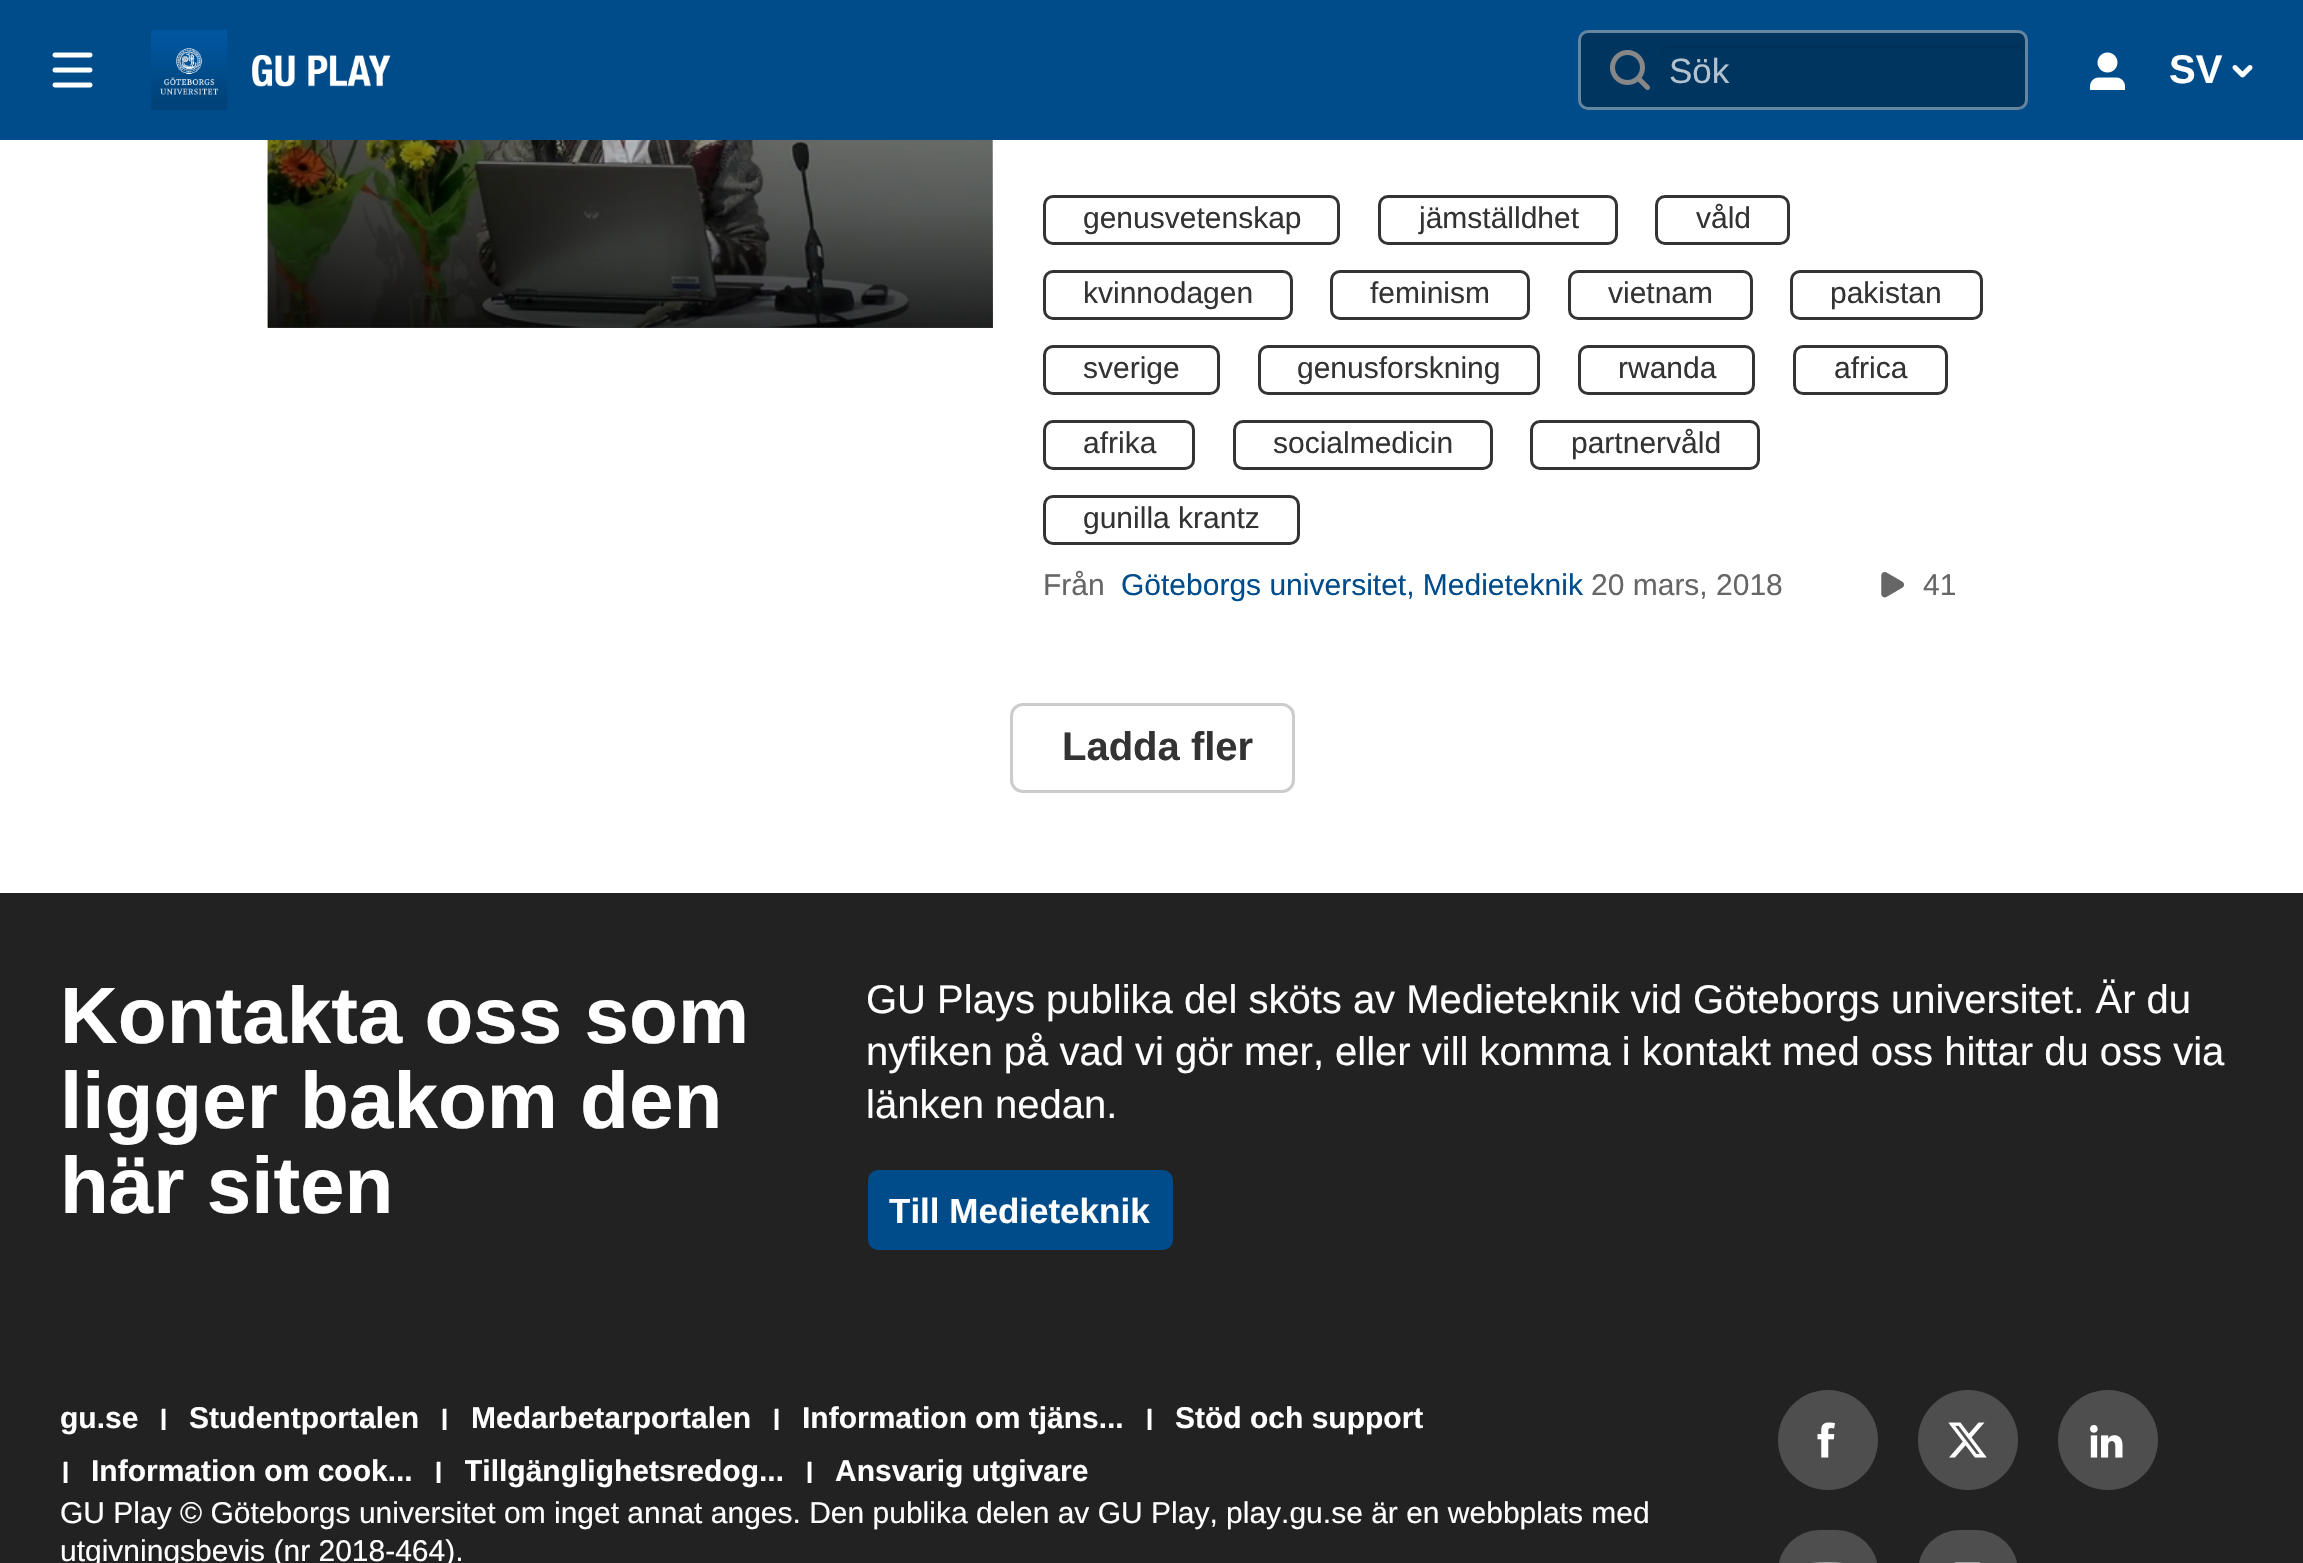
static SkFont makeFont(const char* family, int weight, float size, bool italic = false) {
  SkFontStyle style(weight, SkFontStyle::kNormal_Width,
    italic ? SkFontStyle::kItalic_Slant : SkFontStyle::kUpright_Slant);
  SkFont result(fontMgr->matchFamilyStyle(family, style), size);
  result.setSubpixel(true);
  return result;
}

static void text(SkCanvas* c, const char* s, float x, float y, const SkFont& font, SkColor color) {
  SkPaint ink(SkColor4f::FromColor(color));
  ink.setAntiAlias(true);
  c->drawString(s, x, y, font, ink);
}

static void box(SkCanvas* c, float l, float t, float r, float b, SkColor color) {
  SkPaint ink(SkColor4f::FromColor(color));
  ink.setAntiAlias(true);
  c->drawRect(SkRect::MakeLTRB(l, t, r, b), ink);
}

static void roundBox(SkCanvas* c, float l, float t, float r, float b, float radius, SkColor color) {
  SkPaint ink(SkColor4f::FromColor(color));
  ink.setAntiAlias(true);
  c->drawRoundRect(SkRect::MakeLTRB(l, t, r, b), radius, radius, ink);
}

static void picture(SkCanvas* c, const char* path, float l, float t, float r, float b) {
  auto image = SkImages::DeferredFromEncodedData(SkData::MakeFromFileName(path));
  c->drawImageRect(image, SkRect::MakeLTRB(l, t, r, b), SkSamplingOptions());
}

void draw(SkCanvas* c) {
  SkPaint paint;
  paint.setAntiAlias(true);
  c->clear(0xffffffff);
  box(c, 0, 0, 2303, 140, 0xff004b89);
  picture(c, "img_01.png", 52, 52, 93, 88);
  picture(c, "img_02.png", 151, 29, 391, 110);
  roundBox(c, 1578, 30, 2028, 110, 10, 0xff003560);
  paint.setStyle(SkPaint::kStroke_Style);
  paint.setStrokeWidth(3);
  paint.setColor(0x66ffffff);
  c->drawRoundRect(SkRect::MakeLTRB(1579.5f, 31.5f, 2026.5f, 108.5f), 8.5f, 8.5f, paint);
  picture(c, "img_03.png", 1610, 50, 1650, 90);
  paint.setStyle(SkPaint::kFill_Style);
  paint.setColor(0xff003159);
  c->drawPath(SkPathBuilder().moveTo(1670, 48).lineTo(2015, 48).cubicTo(2021, 48, 2025, 52, 2025, 58).lineTo(2025, 55).cubicTo(2025, 49, 2021, 45, 2015, 45).lineTo(1670, 45).cubicTo(1664, 45, 1660, 49, 1660, 55).lineTo(1660, 58).cubicTo(1660, 52, 1664, 48, 1670, 48).close().detach(), paint);
  SkFont face1 = makeFont("Liberation Sans", 400, 35);
  text(c, "Sök", 1669, 83, face1, 0xffb3c2cf);
  picture(c, "img_04.png", 2090, 52, 2125, 90);
  SkFont face2 = makeFont("Liberation Sans", 700, 40);
  text(c, "SV", 2169, 83, face2, 0xffffffff);
  picture(c, "img_05.png", 2232, 65, 2253, 78);
  picture(c, "img_06.png", 267, 140, 993, 328);
  {
    const SkColor colors[] = {0xcc000000, 0x66000000, 0x33000000, 0x26000000, 0x0d000000};
    const float stops[] = {0, 0.3f, 0.53f, 0.71f, 1};
    const SkPoint ends[] = {{630, 328}, {630, -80}};
    paint.setShader(SkGradientShader::MakeLinear(ends, colors, stops, 5, SkTileMode::kClamp));
    paint.setAlpha(255);
  }
  c->drawRect(SkRect::MakeLTRB(268, 140, 993, 328), paint);
  paint.setStyle(SkPaint::kStroke_Style);
  paint.setShader(nullptr);
  paint.setColor(0xff333333);
  c->drawRoundRect(SkRect::MakeLTRB(1044.5f, 196.5f, 1338.5f, 243.5f), 8.5f, 8.5f, paint);
  SkFont face3 = makeFont("Liberation Sans", 400, 30);
  text(c, "genusvetenskap", 1083, 228, face3, 0xff333333);
  c->drawRoundRect(SkRect::MakeLTRB(1379.5f, 196.5f, 1616.5f, 243.5f), 8.5f, 8.5f, paint);
  text(c, "jämställdhet", 1419, 228, face3, 0xff333333);
  c->drawRoundRect(SkRect::MakeLTRB(1656.5f, 196.5f, 1788.5f, 243.5f), 8.5f, 8.5f, paint);
  text(c, "våld", 1696, 228, face3, 0xff333333);
  c->drawRoundRect(SkRect::MakeLTRB(1044.5f, 271.5f, 1291.5f, 318.5f), 8.5f, 8.5f, paint);
  text(c, "kvinnodagen", 1083, 303, face3, 0xff333333);
  c->drawRoundRect(SkRect::MakeLTRB(1331.5f, 271.5f, 1528.5f, 318.5f), 8.5f, 8.5f, paint);
  text(c, "feminism", 1370, 303, face3, 0xff333333);
  c->drawRoundRect(SkRect::MakeLTRB(1569.5f, 271.5f, 1751.5f, 318.5f), 8.5f, 8.5f, paint);
  text(c, "vietnam", 1608, 303, face3, 0xff333333);
  c->drawRoundRect(SkRect::MakeLTRB(1791.5f, 271.5f, 1981.5f, 318.5f), 8.5f, 8.5f, paint);
  text(c, "pakistan", 1830, 303, face3, 0xff333333);
  c->drawRoundRect(SkRect::MakeLTRB(1044.5f, 346.5f, 1218.5f, 393.5f), 8.5f, 8.5f, paint);
  text(c, "sverige", 1083, 378, face3, 0xff333333);
  c->drawRoundRect(SkRect::MakeLTRB(1259.5f, 346.5f, 1538.5f, 393.5f), 8.5f, 8.5f, paint);
  text(c, "genusforskning", 1297, 378, face3, 0xff333333);
  c->drawRoundRect(SkRect::MakeLTRB(1579.5f, 346.5f, 1753.5f, 393.5f), 8.5f, 8.5f, paint);
  text(c, "rwanda", 1618, 378, face3, 0xff333333);
  c->drawRoundRect(SkRect::MakeLTRB(1794.5f, 346.5f, 1946.5f, 393.5f), 8.5f, 8.5f, paint);
  text(c, "africa", 1834, 378, face3, 0xff333333);
  c->drawRoundRect(SkRect::MakeLTRB(1044.5f, 421.5f, 1193.5f, 468.5f), 8.5f, 8.5f, paint);
  text(c, "afrika", 1083, 453, face3, 0xff333333);
  c->drawRoundRect(SkRect::MakeLTRB(1234.5f, 421.5f, 1491.5f, 468.5f), 8.5f, 8.5f, paint);
  text(c, "socialmedicin", 1273, 453, face3, 0xff333333);
  c->drawRoundRect(SkRect::MakeLTRB(1531.5f, 421.5f, 1758.5f, 468.5f), 8.5f, 8.5f, paint);
  text(c, "partnervåld", 1571, 453, face3, 0xff333333);
  c->drawRoundRect(SkRect::MakeLTRB(1044.5f, 496.5f, 1298.5f, 543.5f), 8.5f, 8.5f, paint);
  text(c, "gunilla krantz", 1083, 528, face3, 0xff333333);
  text(c, "Från", 1043, 595, face3, 0xff666666);
  text(c, "Göteborgs universitet, Medieteknik", 1121, 595, face3, 0xff004b89);
  text(c, "20 mars, 2018", 1591, 595, face3, 0xff666666);
  picture(c, "img_07.png", 1881, 572, 1904, 598);
  text(c, "41", 1923, 595, face3, 0xff666666);
  paint.setColor(0xffcccccc);
  c->drawRoundRect(SkRect::MakeLTRB(1011.5f, 704.5f, 1293.5f, 791.5f), 11.5f, 11.5f, paint);
  text(c, "Ladda fler", 1062, 760, face2, 0xff333333);
  box(c, 0, 893, 2303, 1563, 0xff222222);
  SkFont face4 = makeFont("Liberation Sans", 700, 80);
  text(c, "Kontakta oss som", 60, 1043, face4, 0xffffffff);
  text(c, "ligger bakom den", 60, 1128, face4, 0xffffffff);
  text(c, "här siten", 60, 1213, face4, 0xffffffff);
  SkFont face5 = makeFont("Liberation Sans", 400, 40);
  text(c, "GU Plays publika del sköts av Medieteknik vid Göteborgs universitet. Är du", 866, 1013, face5, 0xffffffff);
  text(c, "nyfiken på vad vi gör mer, eller vill komma i kontakt med oss hittar du oss via", 866, 1065, face5, 0xffffffff);
  text(c, "länken nedan.", 866, 1118, face5, 0xffffffff);
  roundBox(c, 868, 1170, 1173, 1250, 10, 0xff004b89);
  SkFont face6 = makeFont("Liberation Sans", 700, 35);
  text(c, "Till Medieteknik", 889, 1223, face6, 0xffffffff);
  SkFont face7 = makeFont("Liberation Sans", 700, 30);
  text(c, "gu.se", 60, 1428, face7, 0xffffffff);
  text(c, "ı", 158, 1430, face5, 0xffffffff);
  text(c, "Studentportalen", 189, 1428, face7, 0xffffffff);
  text(c, "ı", 439, 1430, face5, 0xffffffff);
  text(c, "Medarbetarportalen", 471, 1428, face7, 0xffffffff);
  text(c, "ı", 771, 1430, face5, 0xffffffff);
  text(c, "Information om tjäns...", 802, 1428, face7, 0xffffffff);
  text(c, "ı", 1144, 1430, face5, 0xffffffff);
  text(c, "Stöd och support", 1175, 1428, face7, 0xffffffff);
  text(c, "ı", 60, 1483, face5, 0xffffffff);
  text(c, "Information om cook...", 91, 1481, face7, 0xffffffff);
  text(c, "ı", 433, 1483, face5, 0xffffffff);
  c->save();
  c->clipRect(SkRect::MakeLTRB(465, 1453, 785, 1493));
  text(c, "Tillgänglighetsredog", 464, 1481, face7, 0xffffffff);
  c->restore();
  text(c, "...", 759, 1481, face7, 0xffffffff);
  text(c, "ı", 804, 1483, face5, 0xffffffff);
  text(c, "Ansvarig utgivare", 835, 1481, face7, 0xffffffff);
  text(c, "GU Play © Göteborgs universitet om inget annat anges. Den publika delen av GU Play, play.gu.se är en webbplats med", 60, 1523, face3, 0xffffffff);
  text(c, "utgivningsbevis (nr 2018-464).", 60, 1561, face3, 0xffffffff);
  paint.setStyle(SkPaint::kFill_Style);
  paint.setColor(0xff4e4e4e);
  c->drawCircle(1828, 1440, 50, paint);
  picture(c, "img_08.png", 1817, 1422, 1835, 1458);
  c->drawCircle(1968, 1440, 50, paint);
  picture(c, "img_09.png", 1948, 1422, 1987, 1458);
  c->drawCircle(2108, 1440, 50, paint);
  picture(c, "img_10.png", 2090, 1425, 2123, 1458);
  roundBox(c, 1778, 1530, 1878, 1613, 50, 0xff4e4e4e);
  picture(c, "img_11.png", 1812, 1562, 1843, 1563);
  roundBox(c, 1918, 1530, 2018, 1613, 50, 0xff4e4e4e);
  picture(c, "img_12.png", 1954, 1562, 1981, 1563);
}
